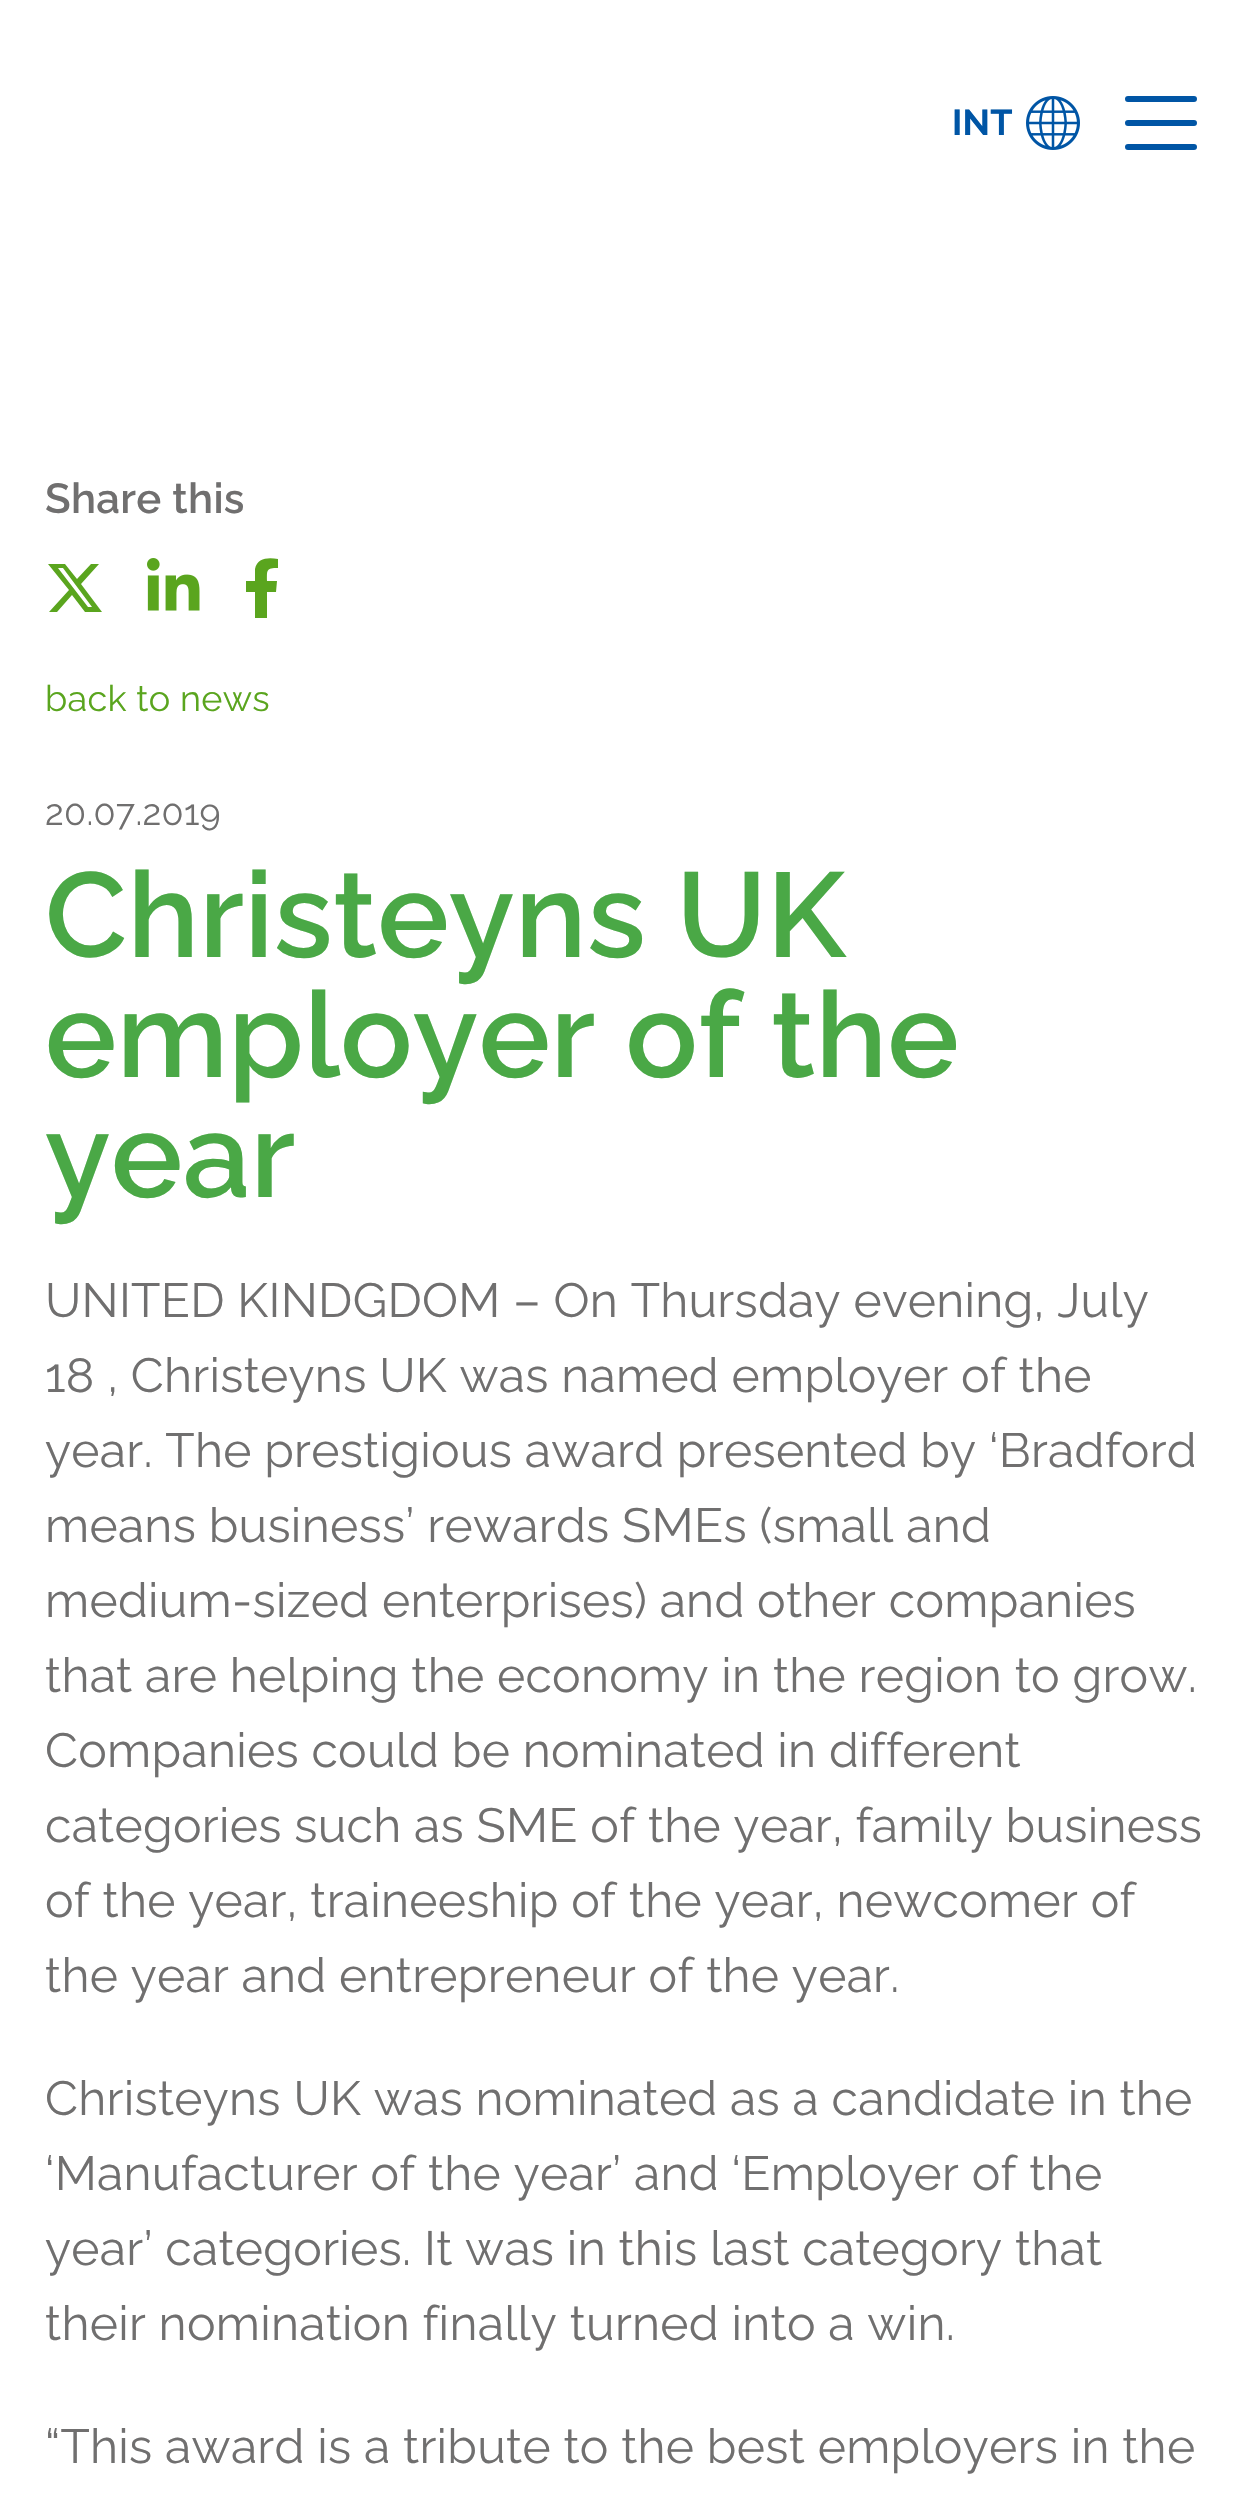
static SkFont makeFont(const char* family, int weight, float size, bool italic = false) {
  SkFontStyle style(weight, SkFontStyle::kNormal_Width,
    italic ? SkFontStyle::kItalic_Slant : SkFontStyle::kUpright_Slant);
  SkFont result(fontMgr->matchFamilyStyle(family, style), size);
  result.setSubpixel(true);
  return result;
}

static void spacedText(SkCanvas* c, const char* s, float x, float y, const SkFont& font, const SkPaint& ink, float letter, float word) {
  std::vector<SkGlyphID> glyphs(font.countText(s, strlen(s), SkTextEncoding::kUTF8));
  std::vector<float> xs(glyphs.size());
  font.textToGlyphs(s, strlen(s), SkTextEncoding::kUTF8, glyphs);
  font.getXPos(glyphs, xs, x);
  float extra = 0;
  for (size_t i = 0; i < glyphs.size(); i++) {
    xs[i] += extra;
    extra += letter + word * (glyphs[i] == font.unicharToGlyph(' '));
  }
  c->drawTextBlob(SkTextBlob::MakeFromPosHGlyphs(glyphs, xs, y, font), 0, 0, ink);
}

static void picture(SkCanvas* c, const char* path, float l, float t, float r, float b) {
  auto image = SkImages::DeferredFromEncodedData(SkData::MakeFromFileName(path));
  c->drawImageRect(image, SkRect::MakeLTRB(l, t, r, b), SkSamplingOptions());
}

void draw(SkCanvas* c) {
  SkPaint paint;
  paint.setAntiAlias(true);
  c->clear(0xffffffff);
  SkFont face1 = makeFont("Raleway", 700, 36);
  paint.setColor(0xff0055a5);
  spacedText(c, "INT", 952, 135, face1, paint, 0.3f, 0);
  picture(c, "img_01.png", 1026, 96, 1080, 150);
  paint.setStyle(SkPaint::kStroke_Style);
  paint.setStrokeWidth(6);
  paint.setStrokeCap(SkPaint::kRound_Cap);
  c->drawPath(SkPathBuilder().moveTo(1128, 99).lineTo(1194, 99).moveTo(1128, 123).lineTo(1194, 123).moveTo(1128, 147).lineTo(1194, 147).detach(), paint);
  SkFont face2 = makeFont("Raleway", 600, 42);
  paint.setStyle(SkPaint::kFill_Style);
  paint.setColor(0xff706f6f);
  spacedText(c, "Share this", 45, 513, face2, paint, 0.3f, 0);
  paint.setColor(0xff5aa51e);
  c->drawPath(SkPathBuilder().moveTo(91, 564).lineTo(99, 564).lineTo(81, 584).lineTo(102, 612).lineTo(85, 612).lineTo(72, 595).lineTo(57, 612).lineTo(49, 612).lineTo(69, 590).lineTo(48, 564).lineTo(65, 564).lineTo(77, 579).close().moveTo(88, 607).lineTo(92, 607).lineTo(63, 568).lineTo(58, 568).close().detach(), paint);
  picture(c, "img_02.png", 147, 558, 200, 611);
  c->drawPath(SkPathBuilder().moveTo(276, 592).lineTo(277, 581).lineTo(267, 581).cubicTo(267, 570, 266, 568, 278, 568).lineTo(278, 559).cubicTo(268, 557, 257, 558, 255, 569).lineTo(255, 581).lineTo(246, 581).lineTo(246, 592).lineTo(255, 592).lineTo(255, 618).lineTo(267, 618).lineTo(267, 592).close().detach(), paint);
  SkFont face3 = makeFont("Raleway", 400, 36);
  spacedText(c, "back to news", 45, 711, face3, paint, 0.3f, 0);
  paint.setColor(0xff706f6f);
  spacedText(c, "20.07.2019", 45, 825, face3, paint, 0.3f, 0);
  SkFont face4 = makeFont("Raleway", 600, 120);
  paint.setColor(0xff4aa846);
  spacedText(c, "Christeyns UK", 45, 957, face4, paint, 0.3f, 0);
  spacedText(c, "employer of the", 45, 1077, face4, paint, 0.3f, 0);
  spacedText(c, "year", 45, 1197, face4, paint, 0.3f, 0);
  SkFont face5 = makeFont("Raleway", 400, 48);
  paint.setColor(0xff706f6f);
  spacedText(c, "UNITED KINDGDOM – On Thursday evening, July", 45, 1317, face5, paint, 0.3f, 0);
  spacedText(c, "18 , Christeyns UK was named employer of the", 45, 1392, face5, paint, 0.3f, 0);
  spacedText(c, "year. The prestigious award presented by ‘Bradford", 45, 1467, face5, paint, 0.3f, 0);
  spacedText(c, "means business’ rewards SMEs (small and", 45, 1542, face5, paint, 0.3f, 0);
  spacedText(c, "medium-sized enterprises) and other companies", 45, 1617, face5, paint, 0.3f, 0);
  spacedText(c, "that are helping the economy in the region to grow.", 45, 1692, face5, paint, 0.3f, 0);
  spacedText(c, "Companies could be nominated in different", 45, 1767, face5, paint, 0.3f, 0);
  spacedText(c, "categories such as SME of the year, family business", 45, 1842, face5, paint, 0.3f, 0);
  spacedText(c, "of the year, traineeship of the year, newcomer of", 45, 1917, face5, paint, 0.3f, 0);
  spacedText(c, "the year and entrepreneur of the year.", 45, 1992, face5, paint, 0.3f, 0);
  spacedText(c, "Christeyns UK was nominated as a candidate in the", 45, 2115, face5, paint, 0.3f, 0);
  spacedText(c, "‘Manufacturer of the year’ and ‘Employer of the", 45, 2190, face5, paint, 0.3f, 0);
  spacedText(c, "year’ categories. It was in this last category that", 45, 2265, face5, paint, 0.3f, 0);
  spacedText(c, "their nomination finally turned into a win.", 45, 2340, face5, paint, 0.3f, 0);
  spacedText(c, "“This award is a tribute to the best employers in the", 45, 2463, face5, paint, 0.3f, 0);
}
